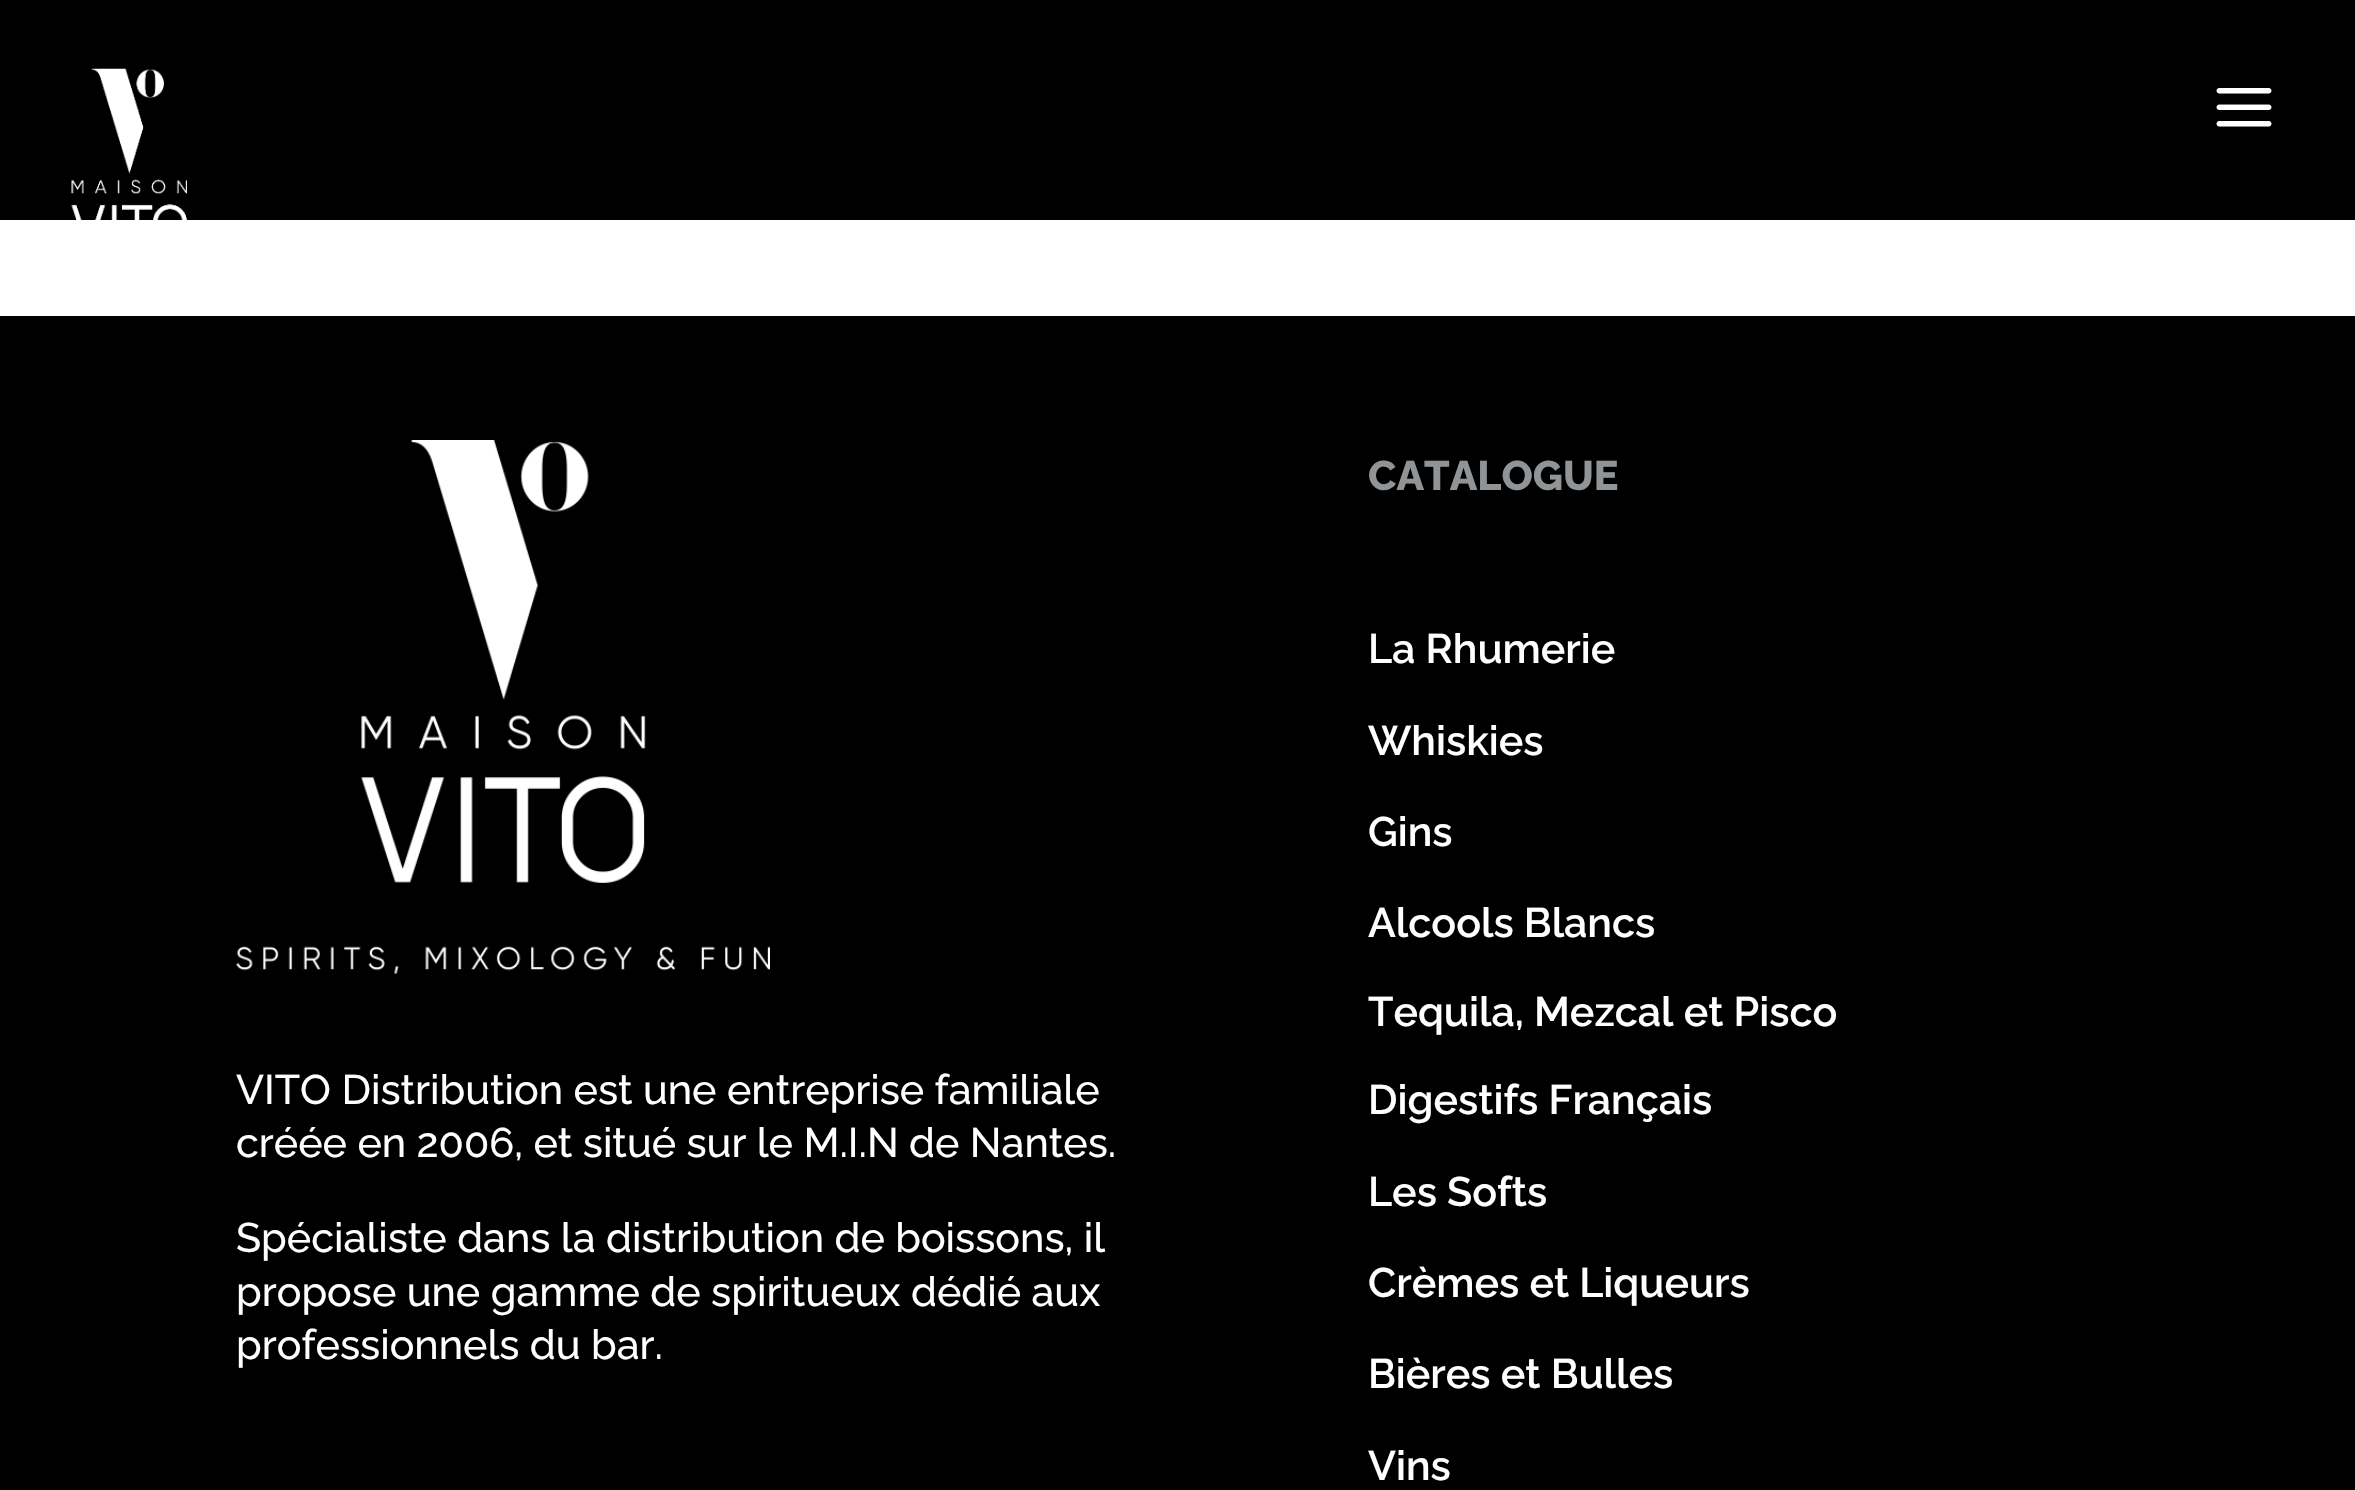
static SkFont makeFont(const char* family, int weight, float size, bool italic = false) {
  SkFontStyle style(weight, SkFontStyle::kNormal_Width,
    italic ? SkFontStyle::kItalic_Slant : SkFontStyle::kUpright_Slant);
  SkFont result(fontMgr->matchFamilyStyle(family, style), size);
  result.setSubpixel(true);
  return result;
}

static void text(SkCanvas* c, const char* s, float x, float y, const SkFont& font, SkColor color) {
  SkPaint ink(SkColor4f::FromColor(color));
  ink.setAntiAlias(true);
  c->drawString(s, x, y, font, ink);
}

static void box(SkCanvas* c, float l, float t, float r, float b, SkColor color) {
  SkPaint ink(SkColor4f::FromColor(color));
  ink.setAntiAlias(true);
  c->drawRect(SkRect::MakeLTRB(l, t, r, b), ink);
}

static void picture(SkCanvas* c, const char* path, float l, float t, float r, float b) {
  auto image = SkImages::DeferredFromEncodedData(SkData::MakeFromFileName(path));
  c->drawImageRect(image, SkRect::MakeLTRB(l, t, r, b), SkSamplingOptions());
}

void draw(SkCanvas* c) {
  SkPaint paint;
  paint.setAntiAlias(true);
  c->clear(0xffffffff);
  box(c, 0, 0, 2355, 220, 0xff000000);
  picture(c, "img_01.png", 71, 68, 187, 220);
  picture(c, "img_02.png", 2216, 88, 2272, 127);
  box(c, 0, 316, 2355, 1490, 0xff000000);
  picture(c, "img_03.png", 236, 440, 770, 974);
  SkFont face1 = makeFont("Raleway", 500, 41.25f);
  text(c, "VITO Distribution est une entreprise familiale", 236, 1104, face1, 0xffffffff);
  text(c, "créée en 2006, et situé sur le M.I.N de Nantes.", 236, 1157, face1, 0xffffffff);
  text(c, "Spécialiste dans la distribution de boissons, il", 236, 1252, face1, 0xffffffff);
  text(c, "propose une gamme de spiritueux dédié aux", 236, 1306, face1, 0xffffffff);
  text(c, "professionnels du bar.", 236, 1359, face1, 0xffffffff);
  SkFont face2 = makeFont("Raleway", 800, 41.25f);
  text(c, "CATALOGUE", 1368, 490, face2, 0xff919496);
  SkFont face3 = makeFont("Raleway", 600, 41.25f);
  text(c, "La Rhumerie", 1368, 663, face3, 0xffffffff);
  text(c, "Whiskies", 1368, 755, face3, 0xffffffff);
  text(c, "Gins", 1368, 846, face3, 0xffffffff);
  text(c, "Alcools Blancs", 1368, 937, face3, 0xffffffff);
  text(c, "Tequila, Mezcal et Pisco", 1368, 1026, face3, 0xffffffff);
  text(c, "Digestifs Français", 1368, 1114, face3, 0xffffffff);
  text(c, "Les Softs", 1368, 1206, face3, 0xffffffff);
  text(c, "Crèmes et Liqueurs", 1368, 1297, face3, 0xffffffff);
  text(c, "Bières et Bulles", 1368, 1388, face3, 0xffffffff);
  text(c, "Vins", 1368, 1480, face3, 0xffffffff);
}
